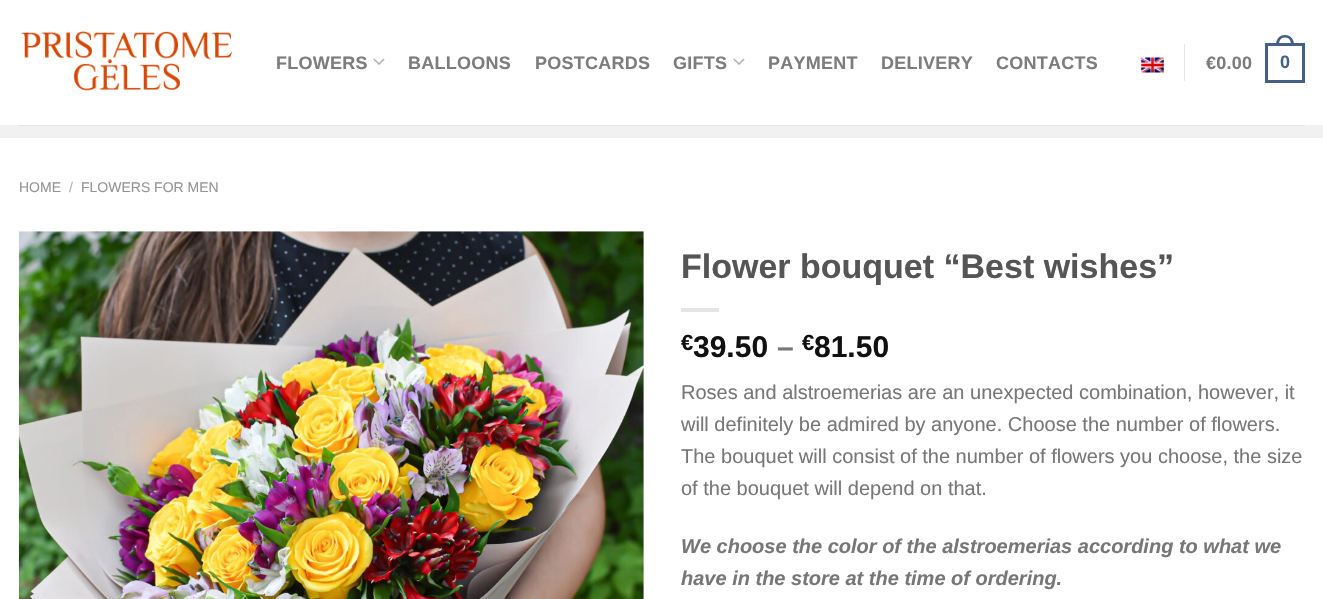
static SkFont makeFont(const char* family, int weight, float size, bool italic = false) {
  SkFontStyle style(weight, SkFontStyle::kNormal_Width,
    italic ? SkFontStyle::kItalic_Slant : SkFontStyle::kUpright_Slant);
  SkFont result(fontMgr->matchFamilyStyle(family, style), size);
  result.setSubpixel(true);
  return result;
}

static void text(SkCanvas* c, const char* s, float x, float y, const SkFont& font, SkColor color) {
  SkPaint ink(SkColor4f::FromColor(color));
  ink.setAntiAlias(true);
  c->drawString(s, x, y, font, ink);
}

static void spacedText(SkCanvas* c, const char* s, float x, float y, const SkFont& font, const SkPaint& ink, float letter, float word) {
  std::vector<SkGlyphID> glyphs(font.countText(s, strlen(s), SkTextEncoding::kUTF8));
  std::vector<float> xs(glyphs.size());
  font.textToGlyphs(s, strlen(s), SkTextEncoding::kUTF8, glyphs);
  font.getXPos(glyphs, xs, x);
  float extra = 0;
  for (size_t i = 0; i < glyphs.size(); i++) {
    xs[i] += extra;
    extra += letter + word * (glyphs[i] == font.unicharToGlyph(' '));
  }
  c->drawTextBlob(SkTextBlob::MakeFromPosHGlyphs(glyphs, xs, y, font), 0, 0, ink);
}

static void box(SkCanvas* c, float l, float t, float r, float b, SkColor color) {
  SkPaint ink(SkColor4f::FromColor(color));
  ink.setAntiAlias(true);
  c->drawRect(SkRect::MakeLTRB(l, t, r, b), ink);
}

static void picture(SkCanvas* c, const char* path, float l, float t, float r, float b) {
  auto image = SkImages::DeferredFromEncodedData(SkData::MakeFromFileName(path));
  c->drawImageRect(image, SkRect::MakeLTRB(l, t, r, b), SkSamplingOptions());
}

void draw(SkCanvas* c) {
  SkPaint paint;
  paint.setAntiAlias(true);
  c->clear(0xffffffff);
  picture(c, "img_01.png", 21, 31, 233, 91);
  SkFont face1 = makeFont("Liberation Sans", 700, 18);
  paint.setColor(0xff7d7d7d);
  spacedText(c, "FLOWERS", 276, 69, face1, paint, 0.25f, 0);
  picture(c, "img_02.png", 373, 58, 385, 65);
  spacedText(c, "BALLOONS", 408, 69, face1, paint, 0.25f, 0);
  spacedText(c, "POSTCARDS", 535, 69, face1, paint, 0.25f, 0);
  spacedText(c, "GIFTS", 673, 69, face1, paint, 0.25f, 0);
  picture(c, "img_02.png", 733, 58, 745, 65);
  spacedText(c, "PAYMENT", 768, 69, face1, paint, 0.25f, 0);
  spacedText(c, "DELIVERY", 881, 69, face1, paint, 0.25f, 0);
  spacedText(c, "CONTACTS", 996, 69, face1, paint, 0.25f, 0);
  picture(c, "img_03.png", 1141, 57, 1164, 73);
  box(c, 1184, 44, 1185, 81, 0xffe6e6e6);
  spacedText(c, "€0.00", 1206, 69, face1, paint, 0.25f, 0);
  paint.setStyle(SkPaint::kStroke_Style);
  paint.setStrokeWidth(3);
  paint.setColor(0xff446084);
  c->drawRect(SkRect::MakeLTRB(1266.5f, 44.5f, 1303.5f, 81.5f), paint);
  paint.setStyle(SkPaint::kFill_Style);
  c->drawPath(SkPathBuilder(SkPathFillType::kEvenOdd).moveTo(1285, 35).cubicTo(1291, 35, 1294, 39.5f, 1294, 45).lineTo(1276, 45).cubicTo(1276, 39.5f, 1279, 35, 1285, 35).close().moveTo(1285, 37.5f).cubicTo(1289.5f, 37.5f, 1291, 41, 1291, 45).lineTo(1279, 45).cubicTo(1279, 41, 1280.5f, 37.5f, 1285, 37.5f).close().detach(), paint);
  spacedText(c, "0", 1280, 68, face1, paint, 0.25f, 0);
  box(c, 0, 125, 1323, 138, 0xfff1f1f1);
  box(c, 19, 125, 1305, 126, 0xffe5e5e5);
  SkFont face2 = makeFont("Liberation Sans", 400, 14);
  text(c, "HOME", 19, 192, face2, 0xff949494);
  text(c, "/", 69, 192, face2, 0xffb2b2b2);
  text(c, "FLOWERS FOR MEN", 81, 192, face2, 0xff949494);
  picture(c, "img_04.png", 18, 231, 644, 599);
  SkFont face3 = makeFont("Liberation Sans", 700, 34);
  text(c, "Flower bouquet “Best wishes”", 681, 278, face3, 0xff555555);
  box(c, 681, 308, 719, 312, 0xffe6e6e6);
  SkFont face4 = makeFont("Liberation Sans", 700, 22);
  text(c, "€", 681, 350, face4, 0xff111111);
  SkFont face5 = makeFont("Liberation Sans", 700, 30);
  text(c, "39.50", 693, 357, face5, 0xff111111);
  text(c, "–", 777, 357, face5, 0xff777777);
  text(c, "€", 802, 350, face4, 0xff111111);
  text(c, "81.50", 814, 357, face5, 0xff111111);
  SkFont face6 = makeFont("Liberation Sans", 400, 20);
  text(c, "Roses and alstroemerias are an unexpected combination, however, it", 681, 399, face6, 0xff777777);
  text(c, "will definitely be admired by anyone. Choose the number of flowers.", 681, 431, face6, 0xff777777);
  text(c, "The bouquet will consist of the number of flowers you choose, the size", 681, 463, face6, 0xff777777);
  text(c, "of the bouquet will depend on that.", 681, 495, face6, 0xff777777);
  SkFont face7 = makeFont("Liberation Sans", 700, 20, true);
  text(c, "We choose the color of the alstroemerias according to what we", 681, 553, face7, 0xff777777);
  text(c, "have in the store at the time of ordering.", 681, 585, face7, 0xff777777);
}
